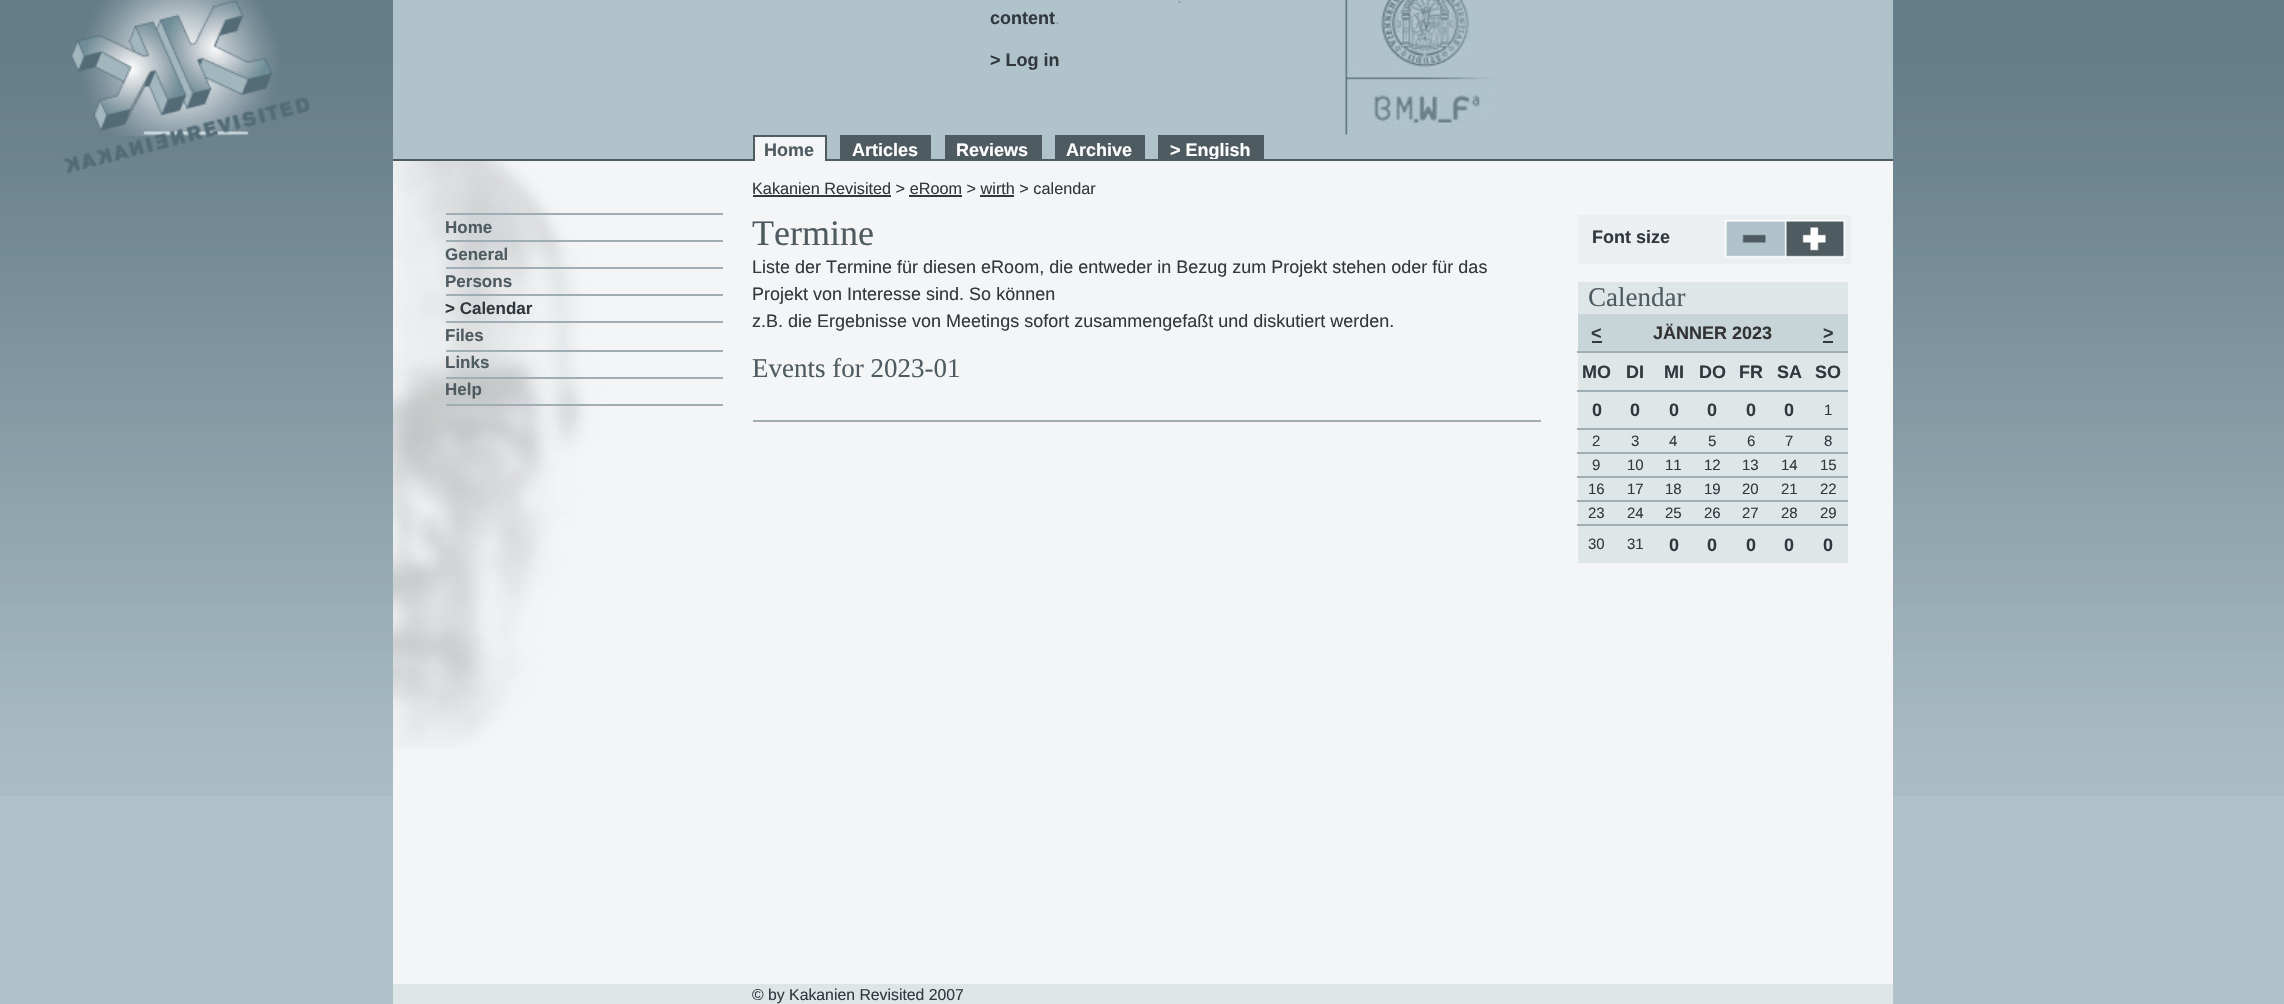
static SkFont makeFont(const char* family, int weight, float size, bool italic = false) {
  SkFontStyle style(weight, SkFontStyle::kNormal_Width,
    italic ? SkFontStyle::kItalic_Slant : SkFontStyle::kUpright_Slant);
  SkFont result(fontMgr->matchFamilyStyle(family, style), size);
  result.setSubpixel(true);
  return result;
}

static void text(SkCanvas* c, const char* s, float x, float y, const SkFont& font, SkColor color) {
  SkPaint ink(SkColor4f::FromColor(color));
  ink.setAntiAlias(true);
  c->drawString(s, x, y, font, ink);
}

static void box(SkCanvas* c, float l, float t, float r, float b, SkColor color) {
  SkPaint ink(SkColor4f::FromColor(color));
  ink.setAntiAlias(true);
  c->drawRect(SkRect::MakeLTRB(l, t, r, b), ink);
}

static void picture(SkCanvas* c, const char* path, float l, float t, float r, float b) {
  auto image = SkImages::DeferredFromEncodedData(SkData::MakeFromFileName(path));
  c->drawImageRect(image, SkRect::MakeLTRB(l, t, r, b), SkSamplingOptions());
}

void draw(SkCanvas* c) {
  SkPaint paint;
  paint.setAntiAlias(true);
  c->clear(0xffafc2c9);
  picture(c, "img_01.png", 0, 0, 2284, 796);
  box(c, 393, 0, 1893, 159, 0xffb1c3ca);
  picture(c, "img_02.png", 63, 0, 310, 174);
  SkFont face1 = makeFont("Liberation Sans", 400, 18);
  text(c, ".", 1177, 3, face1, 0xff999999);
  SkFont face2 = makeFont("Liberation Sans", 700, 18);
  text(c, "content", 990, 24, face2, 0xff31383e);
  text(c, ".", 1055, 24, face1, 0xff999999);
  text(c, "> Log in", 990, 66, face2, 0xff31383e);
  picture(c, "img_03.png", 1345, 0, 1500, 135);
  box(c, 840, 135, 930, 137, 0xff4e5b61);
  box(c, 929, 135, 931, 161, 0xff4e5b61);
  box(c, 840, 135, 842, 161, 0xff4e5b61);
  box(c, 945, 135, 1041, 137, 0xff4e5b61);
  box(c, 1040, 135, 1042, 161, 0xff4e5b61);
  box(c, 945, 135, 947, 161, 0xff4e5b61);
  box(c, 1055, 135, 1145, 137, 0xff4e5b61);
  box(c, 1143, 135, 1145, 161, 0xff4e5b61);
  box(c, 1055, 135, 1057, 161, 0xff4e5b61);
  box(c, 1160, 137, 1262, 159, 0xff4e5b61);
  text(c, "> English", 1170, 156, face2, 0xffffffff);
  box(c, 1158, 135, 1263, 137, 0xff4e5b61);
  box(c, 1262, 135, 1264, 161, 0xff4e5b61);
  box(c, 1158, 135, 1160, 161, 0xff4e5b61);
  box(c, 393, 159, 1893, 161, 0xff4e5b61);
  box(c, 755, 137, 825, 161, 0xfff3f5f6);
  text(c, "Home", 764, 156, face2, 0xff4e5b61);
  box(c, 753, 135, 827, 137, 0xff4e5b61);
  box(c, 825, 135, 827, 161, 0xff4e5b61);
  box(c, 753, 135, 755, 161, 0xff4e5b61);
  box(c, 842, 137, 929, 159, 0xff4e5b61);
  text(c, "Articles", 852, 156, face2, 0xffffffff);
  box(c, 947, 137, 1040, 159, 0xff4e5b61);
  text(c, "Reviews", 956, 156, face2, 0xffffffff);
  box(c, 1057, 137, 1143, 159, 0xff4e5b61);
  text(c, "Archive", 1066, 156, face2, 0xffffffff);
  box(c, 393, 161, 1893, 984, 0xfff3f5f6);
  picture(c, "img_04.png", 393, 161, 671, 749);
  box(c, 446, 213, 723, 215, 0xff9eaeb4);
  box(c, 446, 240, 723, 242, 0xff9eaeb4);
  SkFont face3 = makeFont("Liberation Sans", 700, 17);
  text(c, "Home", 445, 233, face3, 0xff4e5b61);
  box(c, 446, 267, 723, 269, 0xff9eaeb4);
  text(c, "General", 445, 260, face3, 0xff4e5b61);
  box(c, 446, 294, 723, 296, 0xff9eaeb4);
  text(c, "Persons", 445, 287, face3, 0xff4e5b61);
  box(c, 446, 321, 723, 323, 0xff9eaeb4);
  text(c, "> Calendar", 445, 314, face3, 0xff31383e);
  box(c, 446, 350, 723, 352, 0xff9eaeb4);
  text(c, "Files", 445, 341, face3, 0xff4e5b61);
  box(c, 446, 377, 723, 379, 0xff9eaeb4);
  text(c, "Links", 445, 368, face3, 0xff4e5b61);
  box(c, 446, 404, 723, 406, 0xff9eaeb4);
  text(c, "Help", 445, 395, face3, 0xff4e5b61);
  SkFont face4 = makeFont("Liberation Sans", 400, 16.25f);
  text(c, "Kakanien Revisited > eRoom > wirth > calendar", 752, 194, face4, 0xff31383e);
  box(c, 753, 195, 891, 197, 0xff31383e);
  box(c, 909, 195, 962, 197, 0xff31383e);
  box(c, 980, 195, 1014, 197, 0xff31383e);
  SkFont face5 = makeFont("Liberation Serif", 400, 36);
  text(c, "Termine", 752, 245, face5, 0xff4e5b61);
  text(c, "Liste der Termine für diesen eRoom, die entweder in Bezug zum Projekt stehen oder für das", 752, 273, face1, 0xff31383e);
  text(c, "Projekt von Interesse sind. So können", 752, 300, face1, 0xff31383e);
  text(c, "z.B. die Ergebnisse von Meetings sofort zusammengefaßt und diskutiert werden.", 752, 327, face1, 0xff31383e);
  SkFont face6 = makeFont("Liberation Serif", 400, 27);
  text(c, "Events for 2023-01", 752, 377, face6, 0xff4e5b61);
  box(c, 753, 420, 1541, 422, 0xff9eaeb4);
  box(c, 1578, 215, 1851, 264, 0xffebeff1);
  text(c, "Font size", 1592, 243, face2, 0xff31383e);
  picture(c, "img_05.png", 1725, 220, 1787, 258);
  picture(c, "img_06.png", 1786, 220, 1845, 258);
  box(c, 1578, 282, 1848, 563, 0xffdee6e8);
  text(c, "Calendar", 1588, 306, face6, 0xff4e5b61);
  box(c, 1578, 314, 1848, 351, 0xffc7d4d8);
  text(c, "<", 1591, 339, face2, 0xff31383e);
  box(c, 1592, 341, 1602, 343, 0xff31383e);
  text(c, "JÄNNER 2023", 1653, 339, face2, 0xff333333);
  text(c, ">", 1823, 339, face2, 0xff31383e);
  box(c, 1823, 341, 1833, 343, 0xff31383e);
  text(c, "MO", 1582, 378, face2, 0xff31383e);
  text(c, "DI", 1626, 378, face2, 0xff31383e);
  text(c, "MI", 1664, 378, face2, 0xff31383e);
  text(c, "DO", 1699, 378, face2, 0xff31383e);
  text(c, "FR", 1739, 378, face2, 0xff31383e);
  text(c, "SA", 1777, 378, face2, 0xff31383e);
  box(c, 1577, 351, 1848, 353, 0xff9eaeb4);
  text(c, "SO", 1815, 378, face2, 0xff31383e);
  text(c, "0", 1592, 416, face2, 0xff31383e);
  text(c, "0", 1630, 416, face2, 0xff31383e);
  text(c, "0", 1669, 416, face2, 0xff31383e);
  text(c, "0", 1707, 416, face2, 0xff31383e);
  text(c, "0", 1746, 416, face2, 0xff31383e);
  text(c, "0", 1784, 416, face2, 0xff31383e);
  box(c, 1577, 390, 1848, 392, 0xff9eaeb4);
  SkFont face7 = makeFont("Liberation Sans", 400, 15);
  text(c, "1", 1824, 415, face7, 0xff31383e);
  text(c, "2", 1592, 446, face7, 0xff31383e);
  text(c, "3", 1631, 446, face7, 0xff31383e);
  text(c, "4", 1669, 446, face7, 0xff31383e);
  text(c, "5", 1708, 446, face7, 0xff31383e);
  text(c, "6", 1747, 446, face7, 0xff31383e);
  text(c, "7", 1785, 446, face7, 0xff31383e);
  box(c, 1577, 428, 1848, 430, 0xff9eaeb4);
  text(c, "8", 1824, 446, face7, 0xff31383e);
  text(c, "9", 1592, 470, face7, 0xff31383e);
  text(c, "10", 1627, 470, face7, 0xff31383e);
  text(c, "11", 1665, 470, face7, 0xff31383e);
  text(c, "12", 1704, 470, face7, 0xff31383e);
  text(c, "13", 1742, 470, face7, 0xff31383e);
  text(c, "14", 1781, 470, face7, 0xff31383e);
  box(c, 1577, 452, 1848, 454, 0xff9eaeb4);
  text(c, "15", 1820, 470, face7, 0xff31383e);
  text(c, "16", 1588, 494, face7, 0xff31383e);
  text(c, "17", 1627, 494, face7, 0xff31383e);
  text(c, "18", 1665, 494, face7, 0xff31383e);
  text(c, "19", 1704, 494, face7, 0xff31383e);
  text(c, "20", 1742, 494, face7, 0xff31383e);
  text(c, "21", 1781, 494, face7, 0xff31383e);
  box(c, 1577, 476, 1848, 478, 0xff9eaeb4);
  text(c, "22", 1820, 494, face7, 0xff31383e);
  text(c, "23", 1588, 518, face7, 0xff31383e);
  text(c, "24", 1627, 518, face7, 0xff31383e);
  text(c, "25", 1665, 518, face7, 0xff31383e);
  text(c, "26", 1704, 518, face7, 0xff31383e);
  text(c, "27", 1742, 518, face7, 0xff31383e);
  text(c, "28", 1781, 518, face7, 0xff31383e);
  box(c, 1577, 500, 1848, 502, 0xff9eaeb4);
  text(c, "29", 1820, 518, face7, 0xff31383e);
  text(c, "30", 1588, 549, face7, 0xff31383e);
  text(c, "31", 1627, 549, face7, 0xff31383e);
  text(c, "0", 1669, 551, face2, 0xff31383e);
  text(c, "0", 1707, 551, face2, 0xff31383e);
  text(c, "0", 1746, 551, face2, 0xff31383e);
  text(c, "0", 1784, 551, face2, 0xff31383e);
  box(c, 1577, 524, 1848, 526, 0xff9eaeb4);
  text(c, "0", 1823, 551, face2, 0xff31383e);
  box(c, 393, 984, 1893, 1004, 0xffdde5e7);
  SkFont face8 = makeFont("Liberation Sans", 400, 15.8f);
  text(c, "© by Kakanien Revisited 2007", 752, 1000, face8, 0xff31383e);
}
